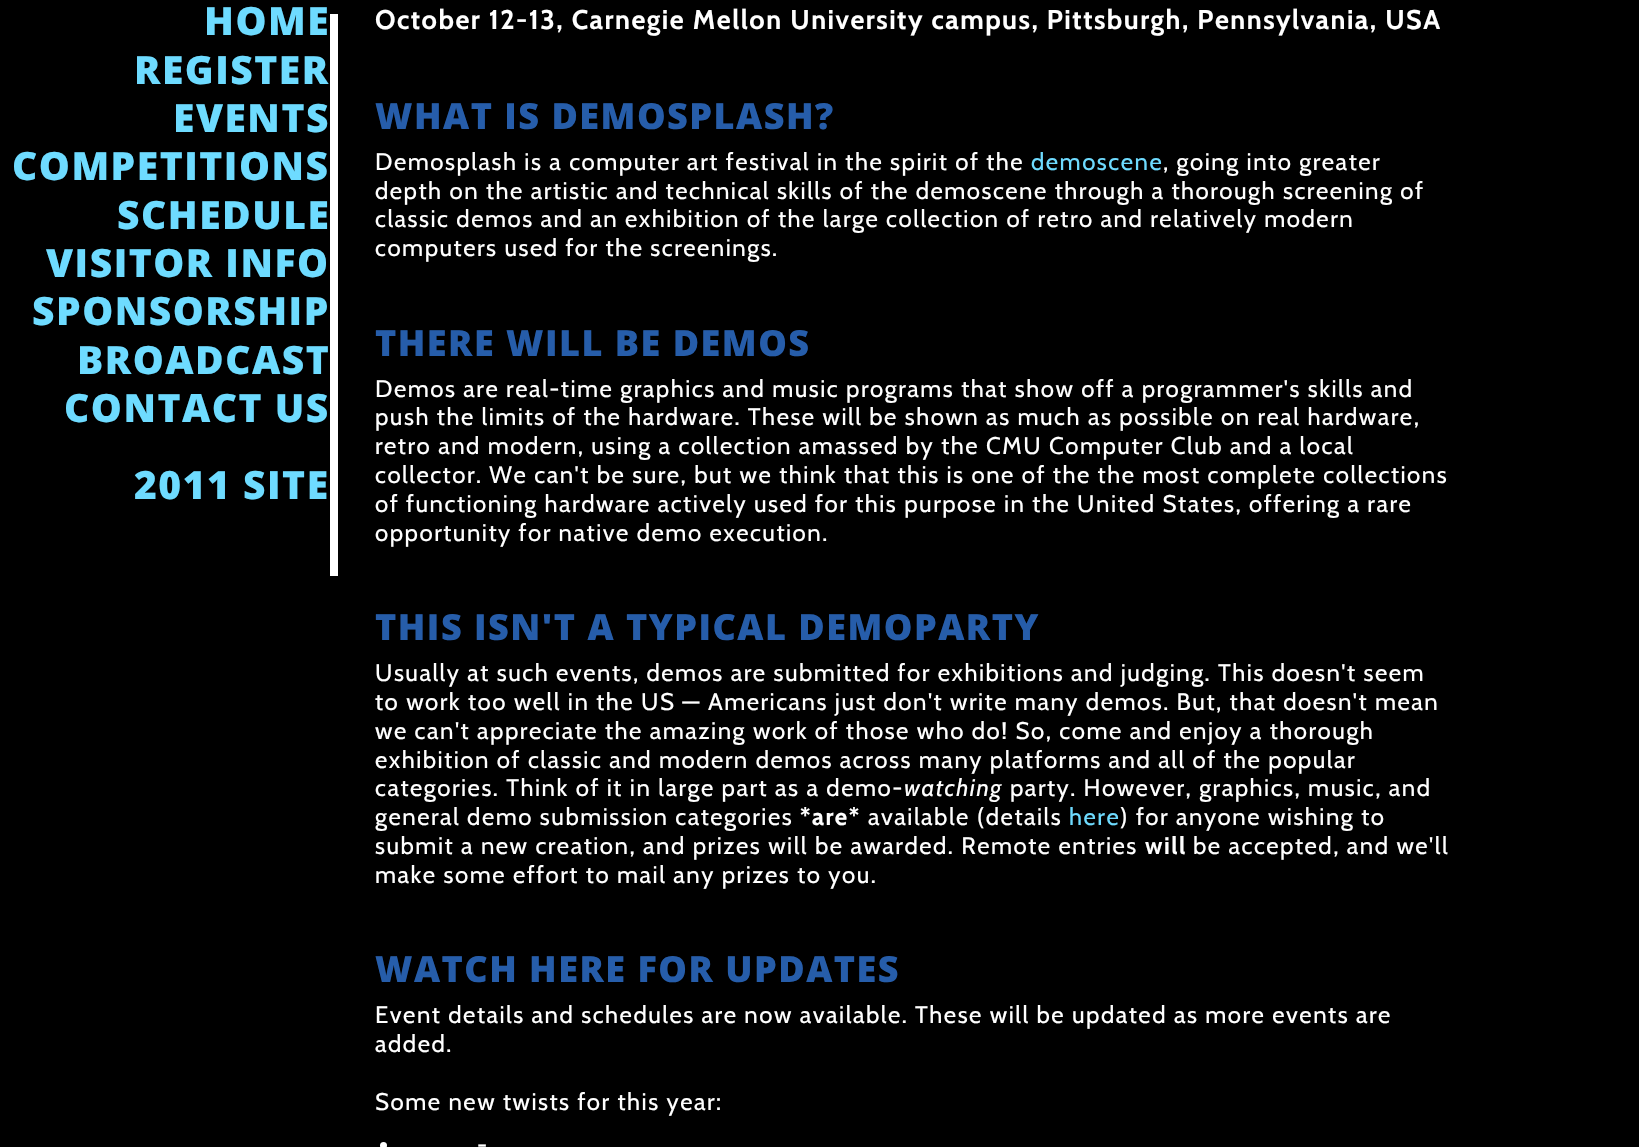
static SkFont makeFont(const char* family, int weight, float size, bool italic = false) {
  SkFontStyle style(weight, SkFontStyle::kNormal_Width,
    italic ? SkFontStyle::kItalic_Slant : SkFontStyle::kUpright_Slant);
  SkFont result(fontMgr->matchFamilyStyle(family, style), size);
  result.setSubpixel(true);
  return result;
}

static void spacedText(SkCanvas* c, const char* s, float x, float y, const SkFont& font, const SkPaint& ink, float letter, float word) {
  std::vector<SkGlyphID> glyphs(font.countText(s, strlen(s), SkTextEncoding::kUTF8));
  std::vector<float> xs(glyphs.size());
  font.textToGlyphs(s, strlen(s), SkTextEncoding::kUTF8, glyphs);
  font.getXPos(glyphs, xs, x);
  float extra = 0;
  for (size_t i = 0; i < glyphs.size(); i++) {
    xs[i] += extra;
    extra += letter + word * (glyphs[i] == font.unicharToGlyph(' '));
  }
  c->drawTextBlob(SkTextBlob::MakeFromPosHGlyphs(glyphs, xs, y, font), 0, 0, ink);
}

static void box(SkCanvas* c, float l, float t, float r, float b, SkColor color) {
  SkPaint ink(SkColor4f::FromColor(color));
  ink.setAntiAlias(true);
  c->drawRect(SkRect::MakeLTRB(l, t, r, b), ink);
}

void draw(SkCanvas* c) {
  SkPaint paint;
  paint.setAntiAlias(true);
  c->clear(0xff000000);
  SkFont face1 = makeFont("Open Sans", 800, 39);
  paint.setColor(0xff6edbff);
  spacedText(c, "HOME", 204, 35, face1, paint, 1.5f, 0);
  spacedText(c, "REGISTER", 134, 84, face1, paint, 1.5f, 0);
  spacedText(c, "EVENTS", 173, 132, face1, paint, 1.5f, 0);
  spacedText(c, "COMPETITIONS", 12, 180, face1, paint, 1.5f, 0);
  spacedText(c, "SCHEDULE", 117, 229, face1, paint, 1.5f, 0);
  spacedText(c, "VISITOR INFO", 46, 277, face1, paint, 1.5f, 0);
  spacedText(c, "SPONSORSHIP", 32, 325, face1, paint, 1.5f, 0);
  spacedText(c, "BROADCAST", 77, 374, face1, paint, 1.5f, 0);
  spacedText(c, "CONTACT US", 64, 422, face1, paint, 1.5f, 0);
  spacedText(c, "2011 SITE", 134, 499, face1, paint, 1.5f, 0);
  box(c, 330, 14, 338, 576, 0xffffffff);
  SkFont face2 = makeFont("Cabin", 700, 27);
  paint.setColor(0xffffffff);
  spacedText(c, "October 12-13, Carnegie Mellon University campus, Pittsburgh, Pennsylvania, USA", 375, 29, face2, paint, 1.5f, 0);
  SkFont face3 = makeFont("Open Sans", 800, 36);
  paint.setColor(0xff265daa);
  spacedText(c, "WHAT IS DEMOSPLASH?", 375, 129, face3, paint, 1.5f, 0);
  SkFont face4 = makeFont("Cabin", 400, 24);
  paint.setColor(0xffffffff);
  spacedText(c, "Demosplash is a computer art festival in the spirit of the", 375, 170, face4, paint, 1.5f, 0);
  paint.setColor(0xff6edbff);
  spacedText(c, "demoscene", 1031, 170, face4, paint, 1.5f, 0);
  paint.setColor(0xffffffff);
  spacedText(c, ", going into greater", 1163, 170, face4, paint, 1.5f, 0);
  spacedText(c, "depth on the artistic and technical skills of the demoscene through a thorough screening of", 375, 199, face4, paint, 1.5f, 0);
  spacedText(c, "classic demos and an exhibition of the large collection of retro and relatively modern", 375, 227, face4, paint, 1.5f, 0);
  spacedText(c, "computers used for the screenings.", 375, 256, face4, paint, 1.5f, 0);
  paint.setColor(0xff265daa);
  spacedText(c, "THERE WILL BE DEMOS", 375, 356, face3, paint, 1.5f, 0);
  paint.setColor(0xffffffff);
  spacedText(c, "Demos are real-time graphics and music programs that show off a programmer's skills and", 375, 397, face4, paint, 1.5f, 0);
  spacedText(c, "push the limits of the hardware. These will be shown as much as possible on real hardware,", 375, 425, face4, paint, 1.5f, 0);
  spacedText(c, "retro and modern, using a collection amassed by the CMU Computer Club and a local", 375, 454, face4, paint, 1.5f, 0);
  spacedText(c, "collector. We can't be sure, but we think that this is one of the the most complete collections", 375, 483, face4, paint, 1.5f, 0);
  spacedText(c, "of functioning hardware actively used for this purpose in the United States, offering a rare", 375, 512, face4, paint, 1.5f, 0);
  spacedText(c, "opportunity for native demo execution.", 375, 541, face4, paint, 1.5f, 0);
  paint.setColor(0xff265daa);
  spacedText(c, "THIS ISN'T A TYPICAL DEMOPARTY", 375, 640, face3, paint, 1.5f, 0);
  paint.setColor(0xffffffff);
  spacedText(c, "Usually at such events, demos are submitted for exhibitions and judging. This doesn't seem", 375, 681, face4, paint, 1.5f, 0);
  spacedText(c, "to work too well in the US — Americans just don't write many demos. But, that doesn't mean", 375, 710, face4, paint, 1.5f, 0);
  spacedText(c, "we can't appreciate the amazing work of those who do! So, come and enjoy a thorough", 375, 739, face4, paint, 1.5f, 0);
  spacedText(c, "exhibition of classic and modern demos across many platforms and all of the popular", 375, 768, face4, paint, 1.5f, 0);
  spacedText(c, "categories. Think of it in large part as a demo-", 375, 796, face4, paint, 1.5f, 0);
  SkFont face5 = makeFont("Cabin", 400, 24, true);
  spacedText(c, "watching", 904, 796, face5, paint, 1.5f, 0);
  spacedText(c, "party. However, graphics, music, and", 1010, 796, face4, paint, 1.5f, 0);
  spacedText(c, "general demo submission categories", 375, 825, face4, paint, 1.5f, 0);
  SkFont face6 = makeFont("Cabin", 700, 24);
  spacedText(c, "*are*", 800, 825, face6, paint, 1.5f, 0);
  spacedText(c, "available (details", 868, 825, face4, paint, 1.5f, 0);
  paint.setColor(0xff6edbff);
  spacedText(c, "here", 1069, 825, face4, paint, 1.5f, 0);
  paint.setColor(0xffffffff);
  spacedText(c, ") for anyone wishing to", 1120, 825, face4, paint, 1.5f, 0);
  spacedText(c, "submit a new creation, and prizes will be awarded. Remote entries", 375, 854, face4, paint, 1.5f, 0);
  spacedText(c, "will", 1145, 854, face6, paint, 1.5f, 0);
  spacedText(c, "be accepted, and we'll", 1193, 854, face4, paint, 1.5f, 0);
  spacedText(c, "make some effort to mail any prizes to you.", 375, 883, face4, paint, 1.5f, 0);
  paint.setColor(0xff265daa);
  spacedText(c, "WATCH HERE FOR UPDATES", 375, 982, face3, paint, 1.5f, 0);
  paint.setColor(0xffffffff);
  spacedText(c, "Event details and schedules are now available. These will be updated as more events are", 375, 1023, face4, paint, 1.5f, 0);
  spacedText(c, "added.", 375, 1052, face4, paint, 1.5f, 0);
  spacedText(c, "Some new twists for this year:", 375, 1110, face4, paint, 1.5f, 0);
  c->drawCircle(383.5f, 1145.5f, 3.5f, paint);
  spacedText(c, "-", 477, 1153, face4, paint, 1.5f, 0);
}
